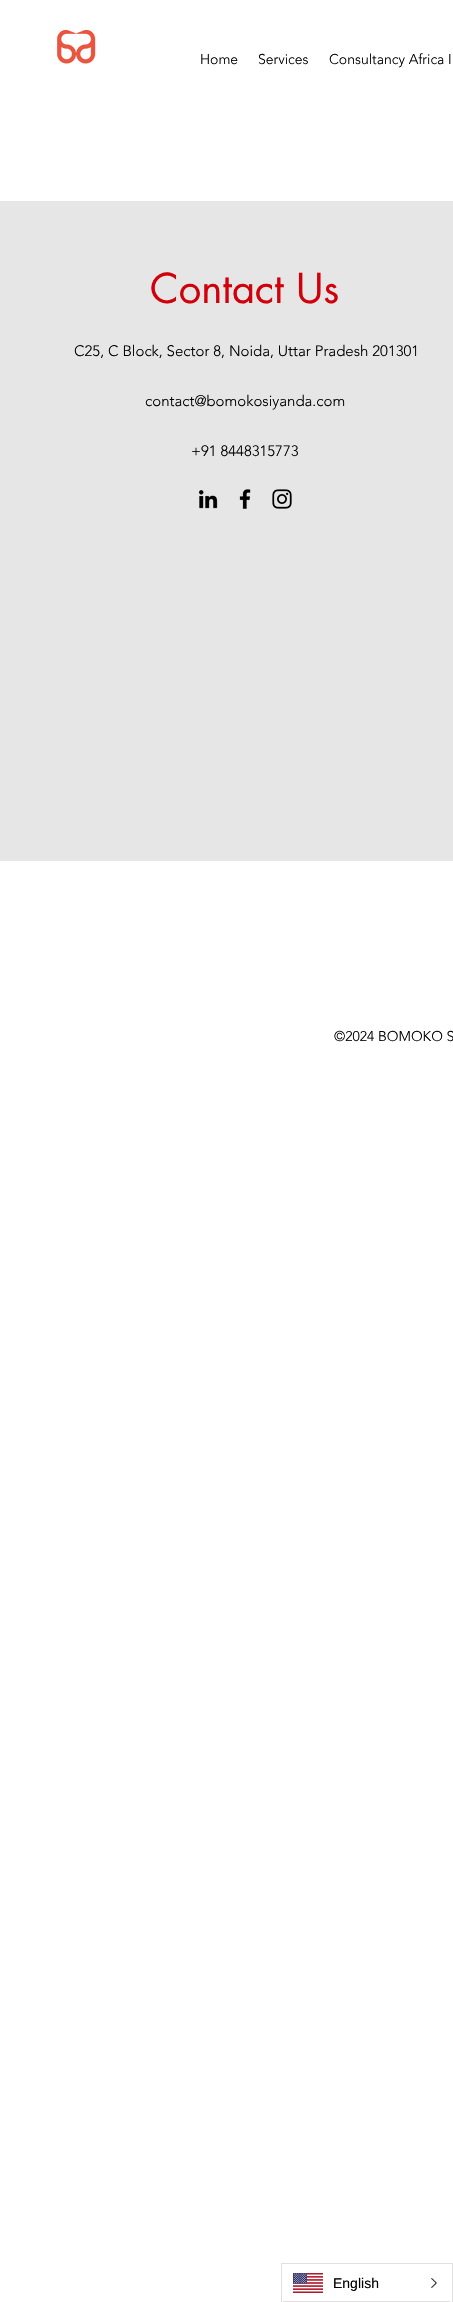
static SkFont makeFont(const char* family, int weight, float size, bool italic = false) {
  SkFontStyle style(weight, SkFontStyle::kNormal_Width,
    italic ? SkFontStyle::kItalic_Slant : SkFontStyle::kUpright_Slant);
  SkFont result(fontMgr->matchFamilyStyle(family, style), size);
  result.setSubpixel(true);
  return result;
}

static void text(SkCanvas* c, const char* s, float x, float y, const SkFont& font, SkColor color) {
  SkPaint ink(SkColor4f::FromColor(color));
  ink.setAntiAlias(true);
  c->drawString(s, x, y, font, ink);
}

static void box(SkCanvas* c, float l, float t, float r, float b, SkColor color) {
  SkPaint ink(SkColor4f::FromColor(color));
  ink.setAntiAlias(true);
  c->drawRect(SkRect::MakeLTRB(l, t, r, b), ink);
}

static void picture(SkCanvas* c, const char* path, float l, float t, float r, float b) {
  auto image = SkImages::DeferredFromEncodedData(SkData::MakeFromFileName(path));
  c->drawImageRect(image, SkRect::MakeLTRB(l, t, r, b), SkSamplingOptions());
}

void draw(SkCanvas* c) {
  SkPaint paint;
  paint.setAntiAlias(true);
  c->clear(0xffffffff);
  picture(c, "img_01.png", 57, 30, 96, 64);
  SkFont face1 = makeFont("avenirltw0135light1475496", 300, 14);
  text(c, "Home", 200, 64, face1, 0xff000000);
  text(c, "Services", 258, 64, face1, 0xff000000);
  text(c, "Consultancy Africa I", 329, 64, face1, 0xff000000);
  box(c, 0, 201, 453, 861, 0xffe6e6e6);
  SkFont face2 = makeFont("futura", 400, 40);
  text(c, "Contact Us", 150, 303, face2, 0xffd1000a);
  SkFont face3 = makeFont("avenirltw0135light1475496", 300, 15);
  text(c, "C25, C Block, Sector 8, Noida, Uttar Pradesh 201301", 74, 356, face3, 0xff000000);
  text(c, "contact@bomokosiyanda.com", 145, 406, face3, 0xff000000);
  text(c, "+91 8448315773", 191, 456, face3, 0xff000000);
  picture(c, "img_02.png", 198, 490, 218, 509);
  picture(c, "img_03.png", 239, 489, 251, 509);
  picture(c, "img_04.png", 272, 489, 292, 509);
  text(c, "©2024 BOMOKO S", 334, 1041, face1, 0xff000000);
  box(c, 281, 2263, 453, 2264, 0xffe0e0e0);
  box(c, 452, 2263, 453, 2302, 0xffe0e0e0);
  box(c, 281, 2263, 282, 2302, 0xffe0e0e0);
  box(c, 282, 2301, 450, 2302, 0xffe0e0e0);
  box(c, 282, 2301, 283, 2302, 0xffffffff);
  picture(c, "img_05.png", 293, 2273, 323, 2293);
  SkFont face4 = makeFont("Liberation Sans", 400, 14);
  text(c, "English", 333, 2288, face4, 0xff000000);
  picture(c, "img_06.png", 431, 2278, 437, 2288);
}
